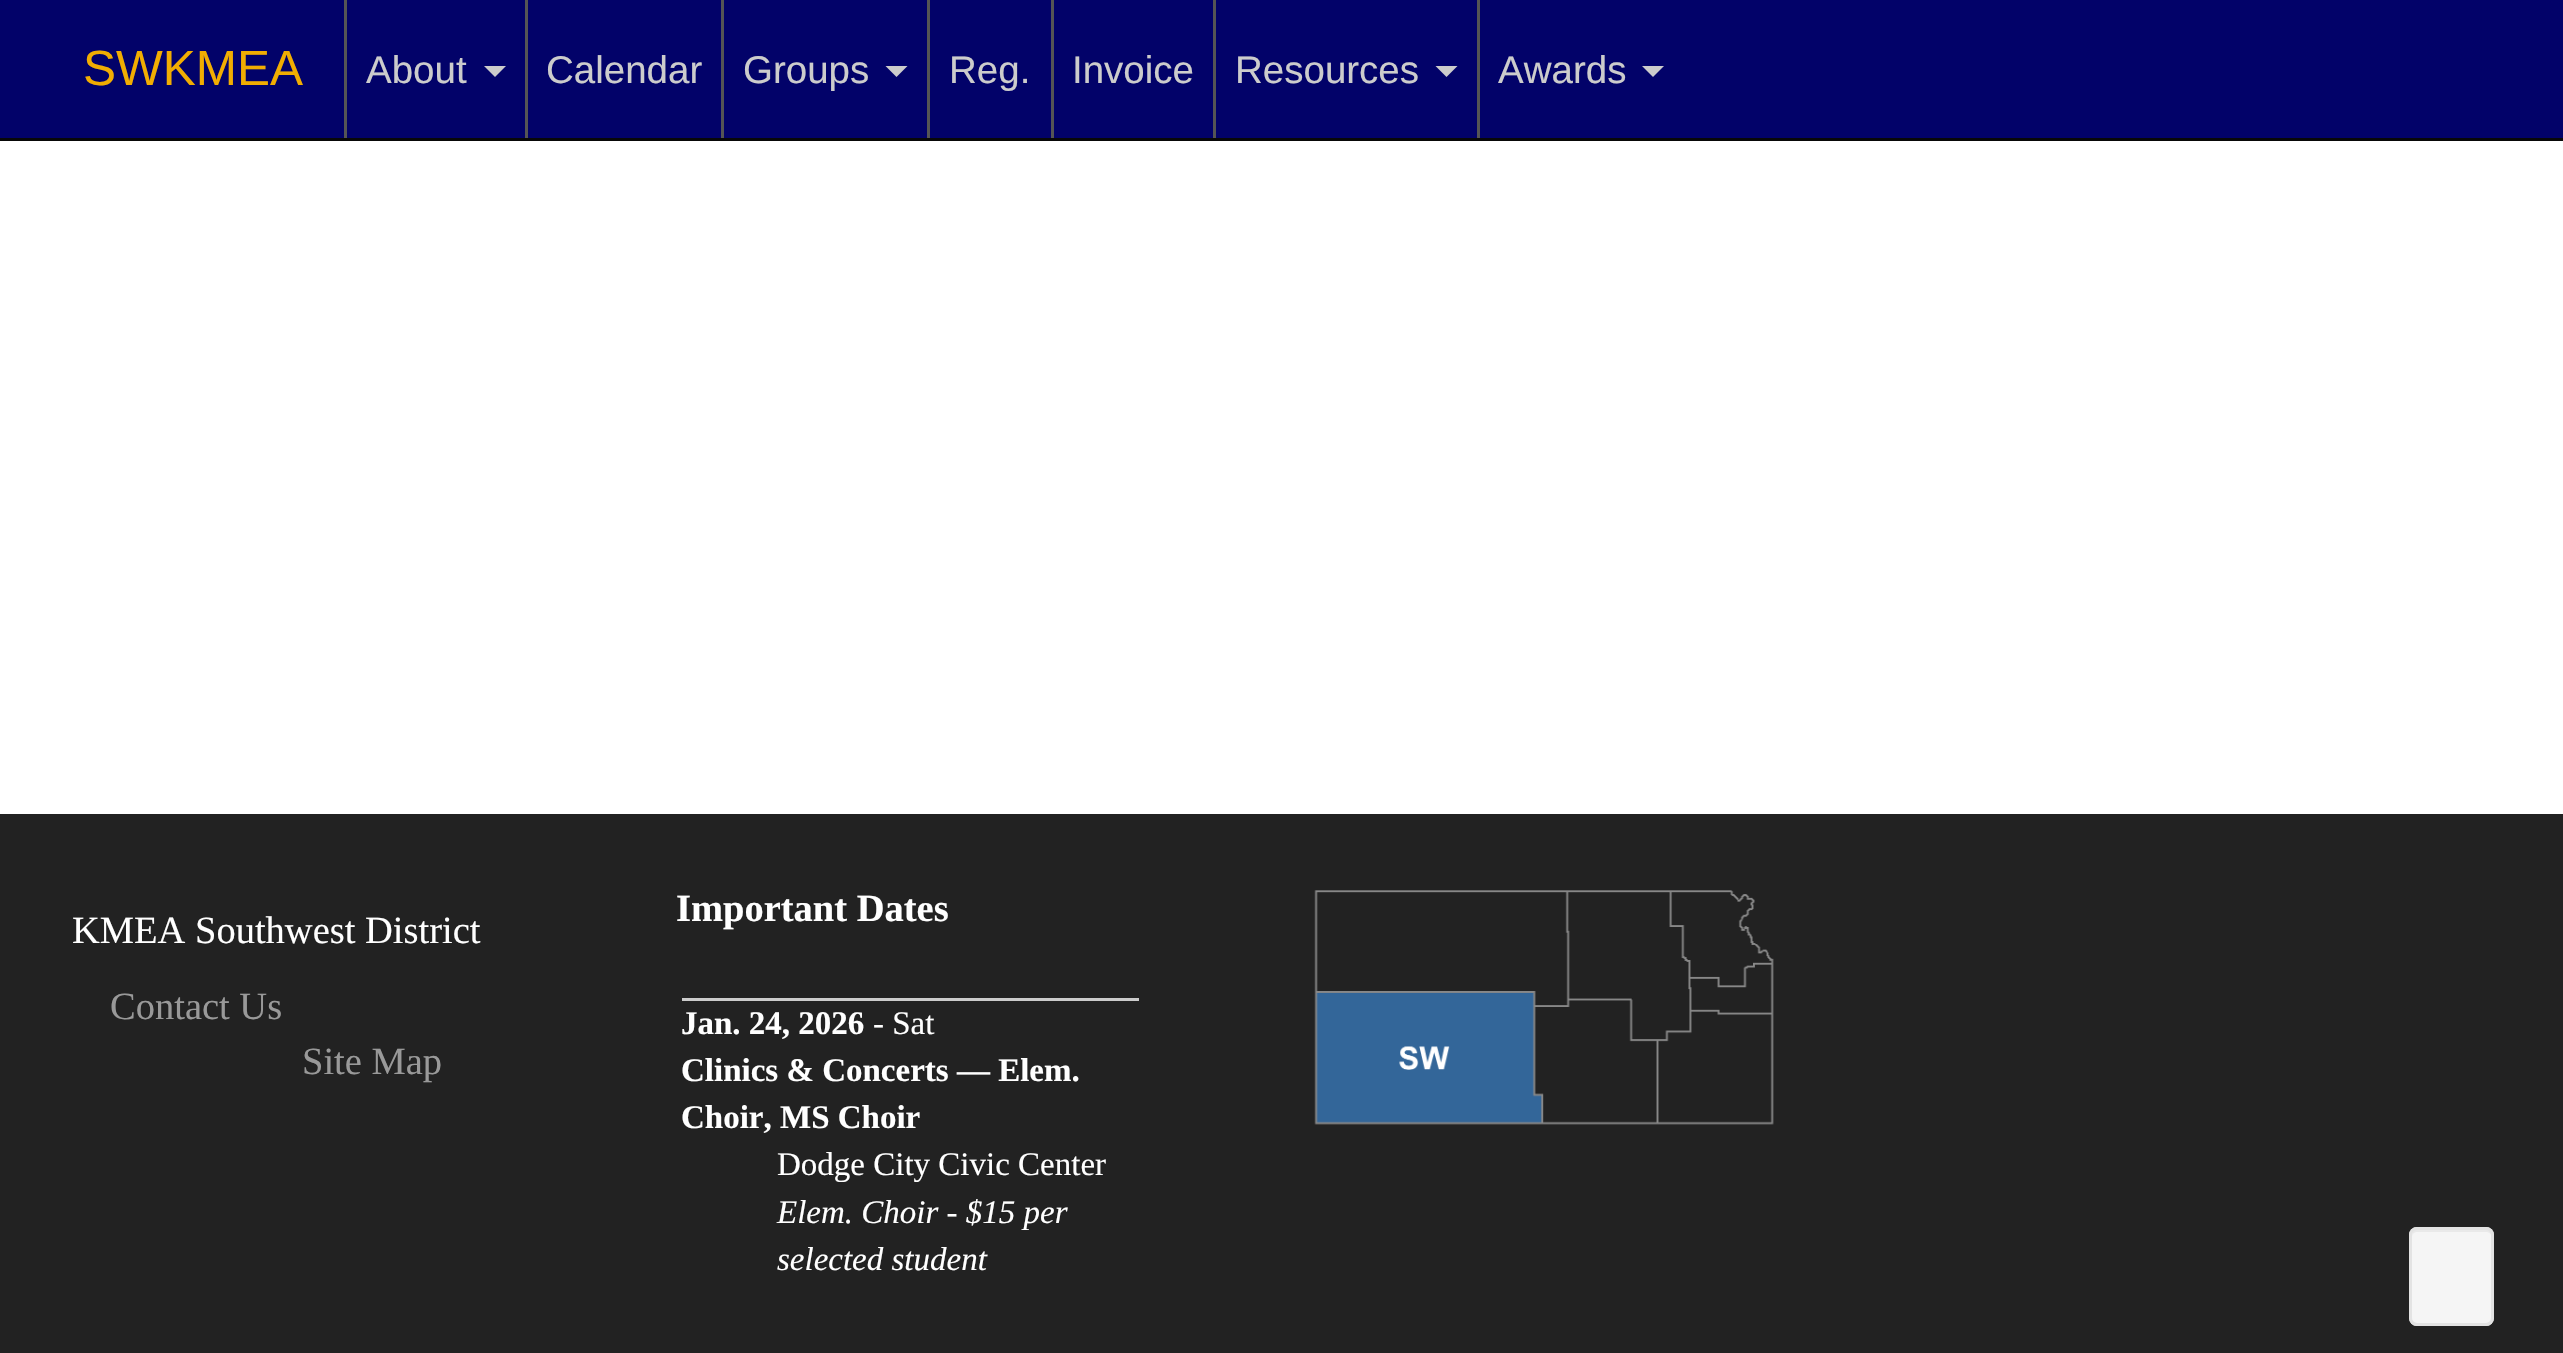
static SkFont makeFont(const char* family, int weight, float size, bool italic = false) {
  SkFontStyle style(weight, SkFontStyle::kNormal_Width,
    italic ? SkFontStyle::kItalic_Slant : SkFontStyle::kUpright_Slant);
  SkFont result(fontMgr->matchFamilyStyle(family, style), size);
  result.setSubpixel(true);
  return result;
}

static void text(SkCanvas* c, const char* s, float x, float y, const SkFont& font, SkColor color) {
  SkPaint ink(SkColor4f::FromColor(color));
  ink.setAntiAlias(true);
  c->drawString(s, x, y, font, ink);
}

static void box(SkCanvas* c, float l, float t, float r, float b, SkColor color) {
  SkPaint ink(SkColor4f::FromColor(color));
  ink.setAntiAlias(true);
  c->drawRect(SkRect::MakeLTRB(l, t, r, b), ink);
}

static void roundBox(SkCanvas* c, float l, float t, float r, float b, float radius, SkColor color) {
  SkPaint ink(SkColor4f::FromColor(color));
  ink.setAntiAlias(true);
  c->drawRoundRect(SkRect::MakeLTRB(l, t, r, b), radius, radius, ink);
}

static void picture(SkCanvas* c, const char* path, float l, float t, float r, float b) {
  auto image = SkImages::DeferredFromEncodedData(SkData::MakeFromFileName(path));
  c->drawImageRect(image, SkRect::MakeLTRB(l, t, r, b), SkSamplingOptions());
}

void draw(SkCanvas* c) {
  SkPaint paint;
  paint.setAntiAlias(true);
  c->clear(0xffffffff);
  box(c, 0, 0, 2563, 138, 0xff020269);
  box(c, 0, 138, 2563, 141, 0xff080808);
  SkFont face1 = makeFont("Liberation Sans", 400, 49.5f);
  text(c, "SWKMEA", 83, 85, face1, 0xfff1ad02);
  box(c, 344, 0, 347, 138, 0xff555555);
  SkFont face2 = makeFont("Liberation Sans", 400, 38.5f);
  text(c, "About", 366, 83, face2, 0xffcccccc);
  paint.setColor(0xffcccccc);
  c->drawPath(SkPathBuilder().moveTo(484, 66).lineTo(506, 66).lineTo(495, 77).close().detach(), paint);
  box(c, 525, 0, 528, 138, 0xff555555);
  text(c, "Calendar", 546, 83, face2, 0xffcccccc);
  box(c, 721, 0, 724, 138, 0xff555555);
  text(c, "Groups", 743, 83, face2, 0xffcccccc);
  c->drawPath(SkPathBuilder().moveTo(885.5f, 66).lineTo(907.5f, 66).lineTo(896.5f, 77).close().detach(), paint);
  box(c, 927, 0, 930, 138, 0xff555555);
  text(c, "Reg.", 949, 83, face2, 0xffcccccc);
  box(c, 1051, 0, 1054, 138, 0xff555555);
  text(c, "Invoice", 1072, 83, face2, 0xffcccccc);
  box(c, 1213, 0, 1216, 138, 0xff555555);
  text(c, "Resources", 1235, 83, face2, 0xffcccccc);
  c->drawPath(SkPathBuilder().moveTo(1435.5f, 66).lineTo(1457.5f, 66).lineTo(1446.5f, 77).close().detach(), paint);
  box(c, 1477, 0, 1480, 138, 0xff555555);
  text(c, "Awards", 1498, 83, face2, 0xffcccccc);
  c->drawPath(SkPathBuilder().moveTo(1642, 66).lineTo(1664, 66).lineTo(1653, 77).close().detach(), paint);
  box(c, 0, 814, 2563, 1353, 0xff222222);
  SkFont face3 = makeFont("Liberation Serif", 400, 38.5f);
  text(c, "KMEA Southwest District", 72, 943, face3, 0xffffffff);
  text(c, "Contact Us", 110, 1019, face3, 0xff999999);
  text(c, "Site Map", 302, 1074, face3, 0xff999999);
  SkFont face4 = makeFont("Liberation Serif", 700, 38.5f);
  text(c, "Important Dates", 676, 921, face4, 0xffffffff);
  box(c, 682, 998, 1139, 1001, 0xffcccccc);
  SkFont face5 = makeFont("Liberation Serif", 700, 33);
  text(c, "Jan. 24, 2026", 681, 1034, face5, 0xffffffff);
  SkFont face6 = makeFont("Liberation Serif", 400, 33);
  text(c, "- Sat", 873, 1034, face6, 0xffffffff);
  text(c, "Clinics & Concerts — Elem.", 681, 1081, face5, 0xffffffff);
  text(c, "Choir, MS Choir", 681, 1128, face5, 0xffffffff);
  text(c, "Dodge City Civic Center", 777, 1175, face6, 0xffffffff);
  SkFont face7 = makeFont("Liberation Serif", 400, 33, true);
  text(c, "Elem. Choir - $15 per", 777, 1223, face7, 0xffffffff);
  text(c, "selected student", 777, 1270, face7, 0xffffffff);
  picture(c, "img_01.png", 1314, 890, 1774, 1125);
  roundBox(c, 2409, 1227, 2494, 1326, 8, 0xfff5f5f5);
  paint.setColor(0xffe9e9e9);
  c->drawPath(SkPathBuilder().moveTo(2417, 1232).lineTo(2486, 1232).cubicTo(2489, 1232, 2492, 1234, 2492, 1238).cubicTo(2492, 1226, 2485, 1229, 2475, 1229).lineTo(2429, 1229).cubicTo(2419, 1229, 2412, 1226, 2412, 1238).cubicTo(2412, 1234, 2414, 1232, 2417, 1232).close().detach(), paint);
  paint.setStyle(SkPaint::kStroke_Style);
  paint.setStrokeWidth(3);
  paint.setColor(0xffe3e3e3);
  c->drawRoundRect(SkRect::MakeLTRB(2410.5f, 1228.5f, 2492.5f, 1324.5f), 6.5f, 6.5f, paint);
}
